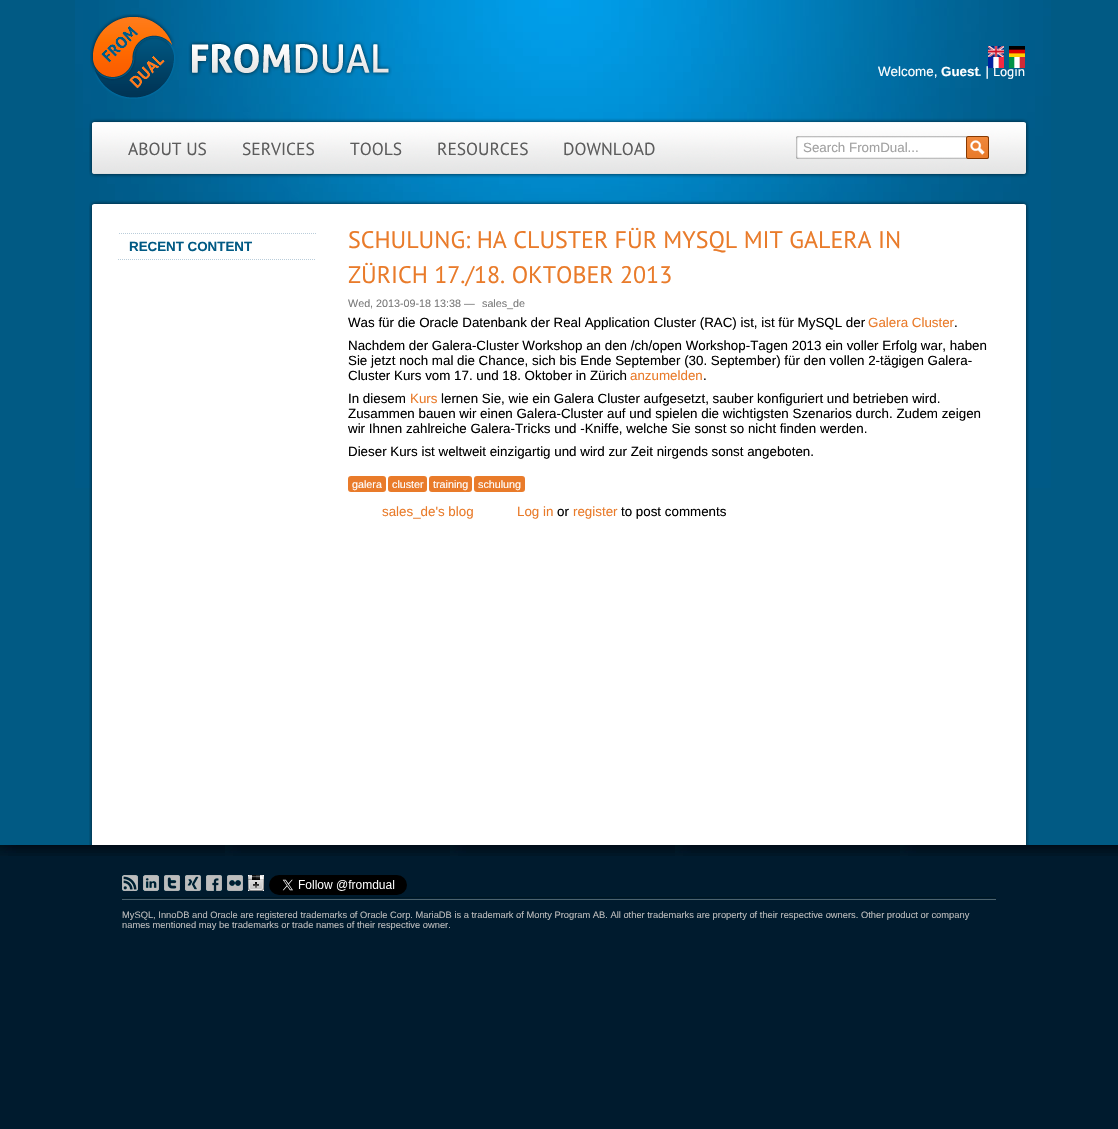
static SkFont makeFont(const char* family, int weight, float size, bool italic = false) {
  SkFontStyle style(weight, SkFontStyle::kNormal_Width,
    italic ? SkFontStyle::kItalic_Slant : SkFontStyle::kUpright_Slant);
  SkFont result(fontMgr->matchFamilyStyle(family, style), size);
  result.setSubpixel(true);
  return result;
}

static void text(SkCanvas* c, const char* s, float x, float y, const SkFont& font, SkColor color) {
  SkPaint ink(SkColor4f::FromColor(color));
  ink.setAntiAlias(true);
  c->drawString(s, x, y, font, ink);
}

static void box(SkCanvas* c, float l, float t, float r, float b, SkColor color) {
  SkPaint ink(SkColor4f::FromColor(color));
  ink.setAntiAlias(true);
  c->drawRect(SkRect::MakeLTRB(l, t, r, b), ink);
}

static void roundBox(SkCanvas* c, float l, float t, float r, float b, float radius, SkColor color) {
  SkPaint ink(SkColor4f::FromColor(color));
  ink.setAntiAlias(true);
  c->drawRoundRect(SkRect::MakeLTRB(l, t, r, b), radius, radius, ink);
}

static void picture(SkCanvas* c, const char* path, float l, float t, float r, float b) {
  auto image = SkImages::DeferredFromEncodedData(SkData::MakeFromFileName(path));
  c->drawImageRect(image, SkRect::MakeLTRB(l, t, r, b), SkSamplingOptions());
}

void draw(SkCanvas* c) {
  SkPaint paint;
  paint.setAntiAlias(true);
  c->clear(0xff001b2e);
  box(c, 0, 0, 1118, 845, 0xff015a84);
  picture(c, "img_01.png", 75, 0, 1051, 488);
  picture(c, "img_02.png", 90, 14, 392, 99);
  picture(c, "img_03.png", 89, 118, 1029, 178);
  picture(c, "img_04.png", 988, 46, 1004, 57);
  picture(c, "img_05.png", 1009, 46, 1025, 57);
  picture(c, "img_06.png", 988, 57, 1004, 68);
  picture(c, "img_07.png", 1009, 57, 1025, 68);
  SkFont face1 = makeFont("Liberation Sans", 400, 13.35f);
  text(c, "Welcome,", 878, 76, face1, 0xffffffff);
  SkFont face2 = makeFont("Liberation Sans", 700, 13.35f);
  text(c, "Guest", 941, 76, face2, 0xffffffff);
  text(c, ". |", 978, 76, face1, 0xffffffff);
  SkFont face3 = makeFont("PT Sans", 400, 13.35f);
  text(c, "Login", 993, 76, face3, 0xffffffff);
  SkFont face4 = makeFont("PT Sans", 400, 17.5f);
  text(c, "ABOUT US", 128, 155, face4, 0xff5c5c5c);
  text(c, "SERVICES", 242, 155, face4, 0xff5c5c5c);
  text(c, "TOOLS", 350, 155, face4, 0xff5c5c5c);
  text(c, "RESOURCES", 437, 155, face4, 0xff5c5c5c);
  text(c, "DOWNLOAD", 563, 155, face4, 0xff5c5c5c);
  picture(c, "img_08.png", 796, 136, 966, 159);
  text(c, "Search FromDual...", 803, 152, face1, 0xffa1a1a1);
  picture(c, "img_09.png", 966, 136, 989, 159);
  picture(c, "img_10.png", 89, 234, 1029, 845);
  paint.setStyle(SkPaint::kStroke_Style);
  paint.setStrokeWidth(1);
  paint.setColor(0xffbacdda);
  paint.setPathEffect(SkDashPathEffect::Make({{1, 1}}, 0));
  c->drawPath(SkPathBuilder().moveTo(118, 259.5f).lineTo(316, 259.5f).detach(), paint);
  paint.setPathEffect(nullptr);
  picture(c, "img_11.png", 89, 200, 1029, 234);
  paint.setPathEffect(SkDashPathEffect::Make({{1, 1}}, 0));
  c->drawPath(SkPathBuilder().moveTo(119, 233.5f).lineTo(316, 233.5f).detach(), paint);
  paint.setPathEffect(nullptr);
  text(c, "RECENT CONTENT", 129, 251, face2, 0xff015a84);
  SkFont face5 = makeFont("PT Sans", 400, 24);
  text(c, "SCHULUNG: HA CLUSTER FÜR MYSQL MIT GALERA IN", 348, 248, face5, 0xffe97b2a);
  text(c, "ZÜRICH 17./18. OKTOBER 2013", 348, 283, face5, 0xffe97b2a);
  SkFont face6 = makeFont("Liberation Sans", 400, 10.75f);
  text(c, "Wed, 2013-09-18 13:38 —", 348, 307, face6, 0xff7a7a7a);
  text(c, "sales_de", 482, 307, face6, 0xff7a7a7a);
  text(c, "Was für die Oracle Datenbank der Real Application Cluster (RAC) ist, ist für MySQL der", 348, 327, face1, 0xff000000);
  text(c, "Galera Cluster", 868, 327, face1, 0xffe97b2a);
  text(c, ".", 954, 327, face1, 0xff000000);
  text(c, "Nachdem der Galera-Cluster Workshop an den /ch/open Workshop-Tagen 2013 ein voller Erfolg war, haben", 348, 350, face1, 0xff000000);
  text(c, "Sie jetzt noch mal die Chance, sich bis Ende September (30. September) für den vollen 2-tägigen Galera-", 348, 365, face1, 0xff000000);
  text(c, "Cluster Kurs vom 17. und 18. Oktober in Zürich", 348, 380, face1, 0xff000000);
  text(c, "anzumelden", 630, 380, face1, 0xffe97b2a);
  text(c, ".", 703, 380, face1, 0xff000000);
  text(c, "In diesem", 348, 403, face1, 0xff000000);
  text(c, "Kurs", 410, 403, face1, 0xffe97b2a);
  text(c, "lernen Sie, wie ein Galera Cluster aufgesetzt, sauber konfiguriert und betrieben wird.", 441, 403, face1, 0xff000000);
  text(c, "Zusammen bauen wir einen Galera-Cluster auf und spielen die wichtigsten Szenarios durch. Zudem zeigen", 348, 418, face1, 0xff000000);
  text(c, "wir Ihnen zahlreiche Galera-Tricks und -Kniffe, welche Sie sonst so nicht finden werden.", 348, 433, face1, 0xff000000);
  text(c, "Dieser Kurs ist weltweit einzigartig und wird zur Zeit nirgends sonst angeboten.", 348, 456, face1, 0xff000000);
  roundBox(c, 348, 476, 386, 492, 3, 0xffe97b2a);
  text(c, "galera", 352, 488, face6, 0xffffffff);
  roundBox(c, 388, 476, 427, 492, 3, 0xffe97b2a);
  text(c, "cluster", 392, 488, face6, 0xffffffff);
  roundBox(c, 429, 476, 472, 492, 3, 0xffe97b2a);
  text(c, "training", 433, 488, face6, 0xffffffff);
  roundBox(c, 474, 476, 525, 492, 3, 0xffe97b2a);
  text(c, "schulung", 478, 488, face6, 0xffffffff);
  text(c, "sales_de's blog", 382, 516, face1, 0xffe97b2a);
  text(c, "Log in", 517, 516, face1, 0xffe97b2a);
  text(c, "or", 557, 516, face1, 0xff000000);
  text(c, "register", 573, 516, face1, 0xffe97b2a);
  text(c, "to post comments", 621, 516, face1, 0xff000000);
  picture(c, "img_12.png", 0, 845, 1118, 856);
  picture(c, "img_13.png", 122, 875, 138, 891);
  picture(c, "img_14.png", 143, 875, 159, 891);
  picture(c, "img_15.png", 164, 875, 180, 891);
  picture(c, "img_16.png", 185, 875, 201, 891);
  picture(c, "img_17.png", 206, 875, 222, 891);
  picture(c, "img_18.png", 227, 875, 243, 891);
  picture(c, "img_19.png", 248, 875, 264, 891);
  picture(c, "img_20.png", 269, 875, 407, 895);
  box(c, 122, 897, 996, 898, 0xff001722);
  box(c, 122, 899, 996, 900, 0xff4d646f);
  SkFont face7 = makeFont("Liberation Sans", 400, 9.33f);
  text(c, "MySQL, InnoDB and Oracle are registered trademarks of Oracle Corp. MariaDB is a trademark of Monty Program AB. All other trademarks are property of their respective owners. Other product or company", 122, 918, face7, 0xffbcbcbc);
  text(c, "names mentioned may be trademarks or trade names of their respective owner.", 122, 928, face7, 0xffbcbcbc);
}
